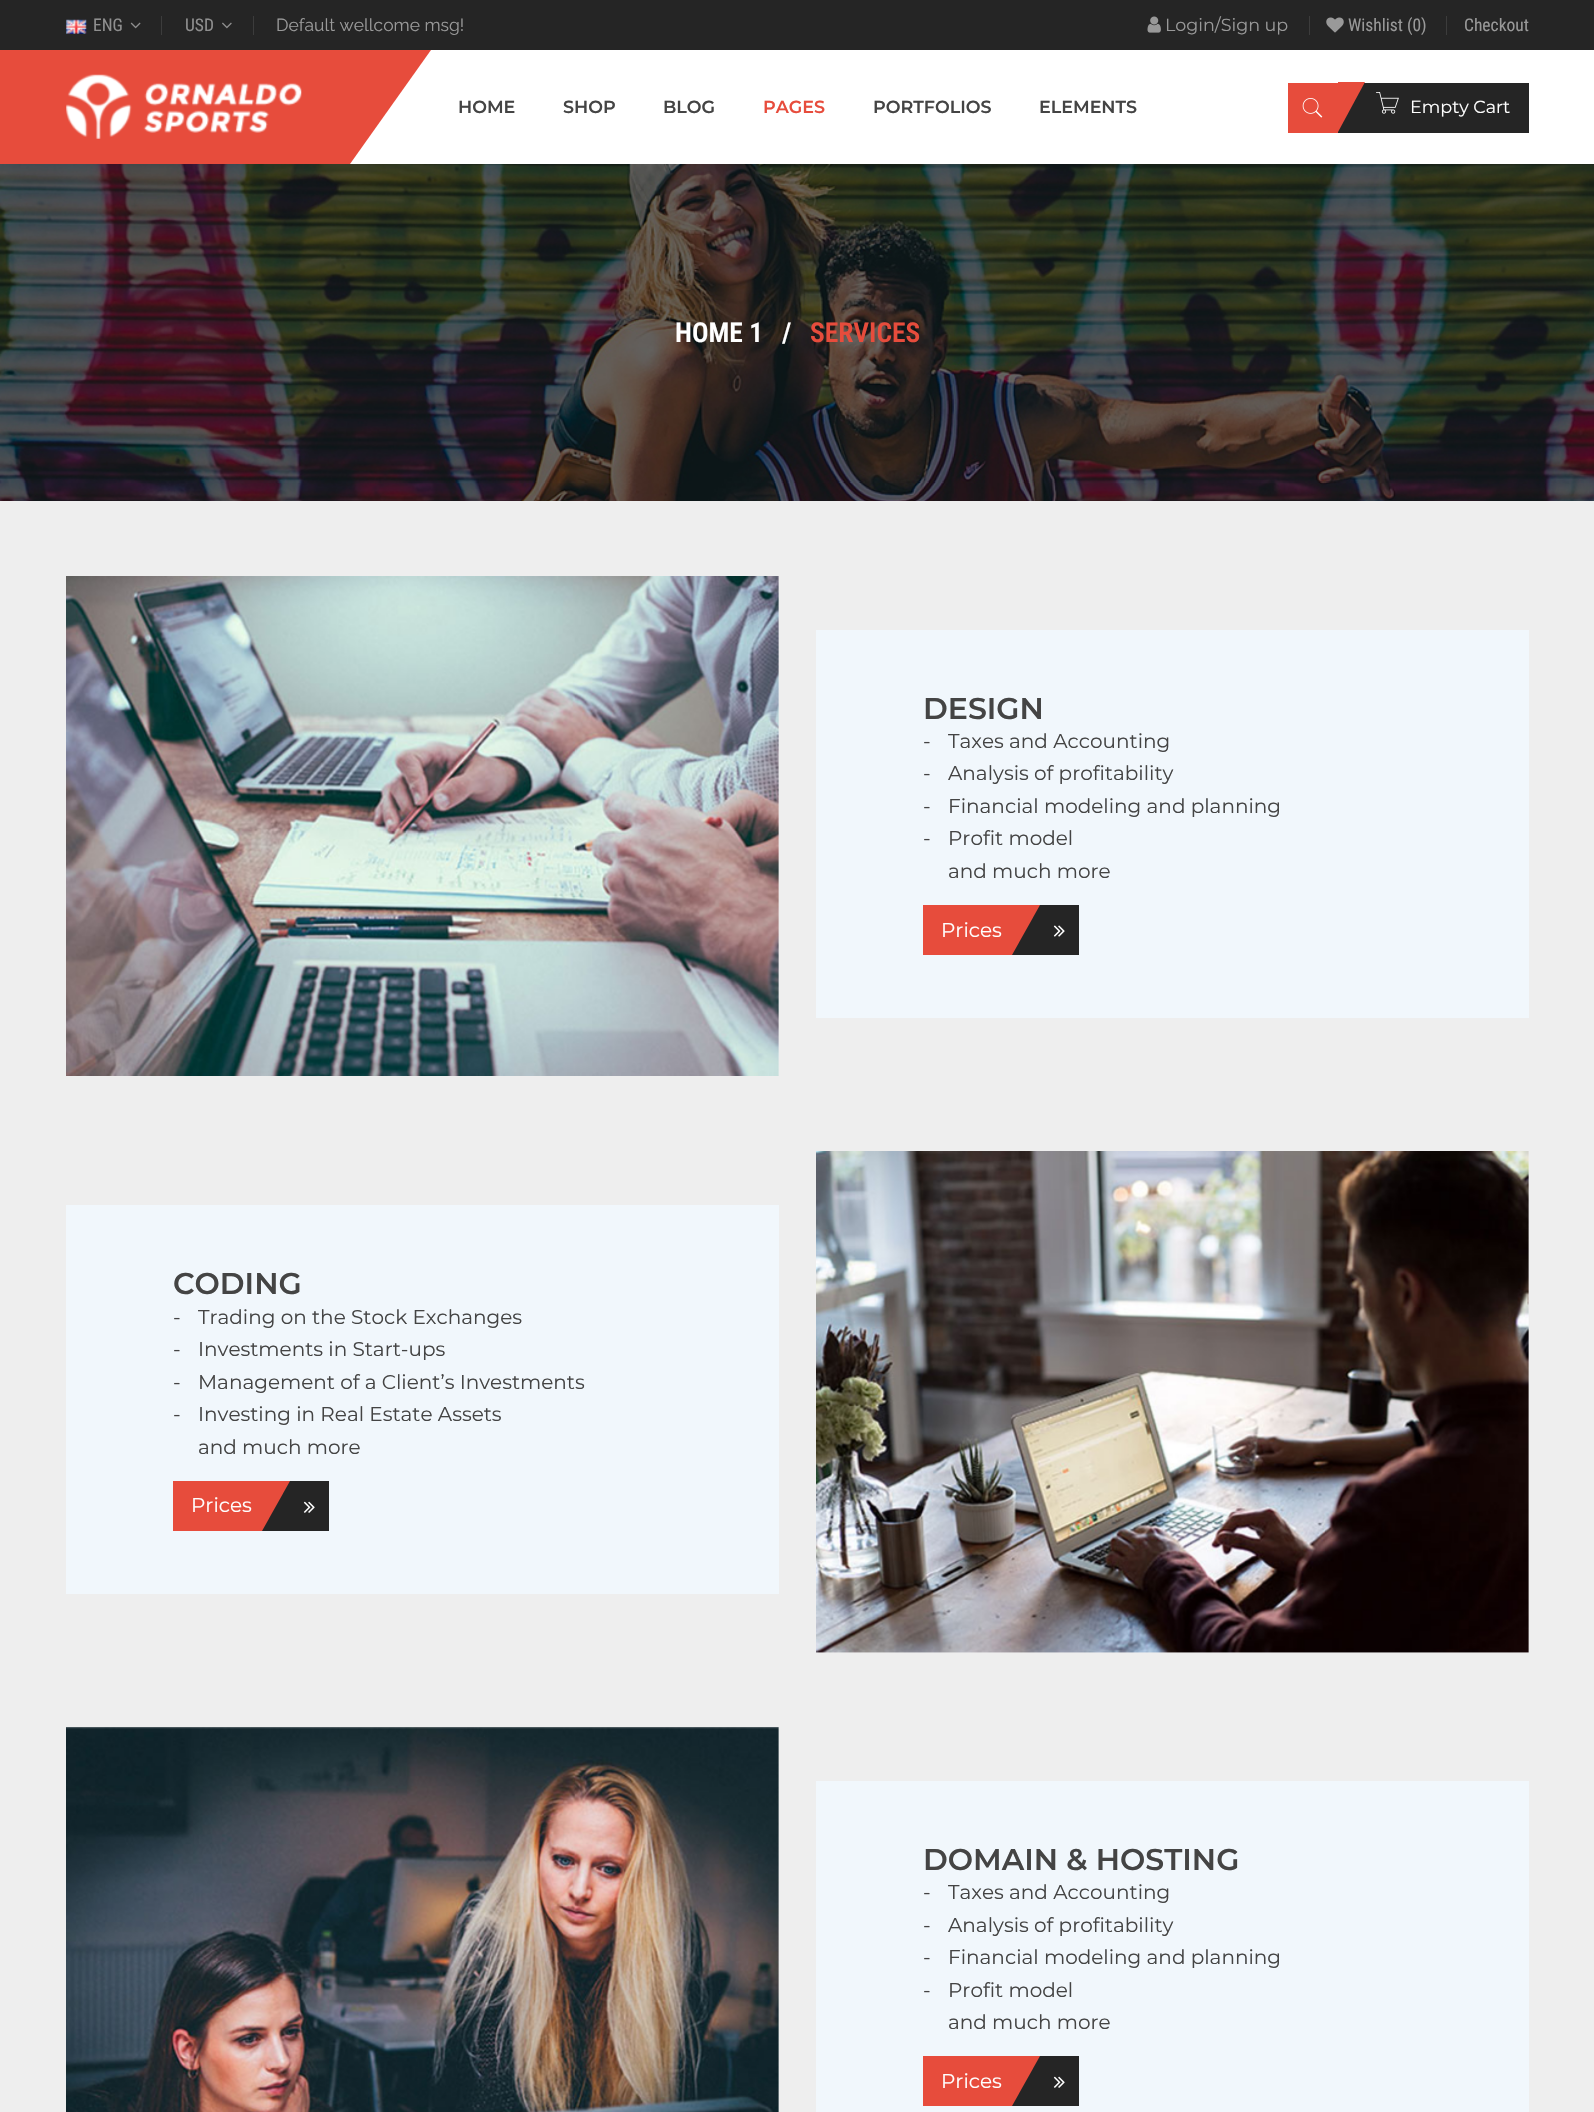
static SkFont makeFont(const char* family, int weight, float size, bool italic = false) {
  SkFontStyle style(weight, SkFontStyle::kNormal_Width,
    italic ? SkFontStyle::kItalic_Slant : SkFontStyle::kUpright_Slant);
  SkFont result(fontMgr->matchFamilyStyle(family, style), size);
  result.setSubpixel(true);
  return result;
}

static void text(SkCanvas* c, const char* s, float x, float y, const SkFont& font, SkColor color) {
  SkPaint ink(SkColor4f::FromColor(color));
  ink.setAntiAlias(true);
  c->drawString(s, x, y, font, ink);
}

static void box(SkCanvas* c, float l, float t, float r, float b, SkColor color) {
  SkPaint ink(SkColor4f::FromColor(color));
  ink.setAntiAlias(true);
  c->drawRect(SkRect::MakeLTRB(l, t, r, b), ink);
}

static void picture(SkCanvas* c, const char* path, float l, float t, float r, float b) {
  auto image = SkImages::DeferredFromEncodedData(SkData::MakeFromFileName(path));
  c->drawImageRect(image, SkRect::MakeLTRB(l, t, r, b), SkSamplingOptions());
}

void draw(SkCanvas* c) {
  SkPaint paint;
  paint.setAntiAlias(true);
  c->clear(0xffffffff);
  box(c, 0, 0, 1594, 50, 0xff252525);
  picture(c, "img_01.png", 66, 19, 87, 34);
  SkFont face1 = makeFont("Roboto Condensed", 400, 17.5f);
  text(c, "ENG", 93, 31, face1, 0xff8f8f8f);
  picture(c, "img_02.png", 130, 22, 141, 29);
  box(c, 161, 16, 162, 35, 0xff3c3c3c);
  text(c, "USD", 185, 31, face1, 0xff8f8f8f);
  picture(c, "img_03.png", 222, 22, 232, 29);
  box(c, 253, 16, 254, 35, 0xff3c3c3c);
  SkFont face2 = makeFont("Raleway", 400, 17.5f);
  text(c, "Default wellcome msg!", 276, 31, face2, 0xff999999);
  picture(c, "img_04.png", 1147, 16, 1161, 33);
  SkFont face3 = makeFont("Montserrat", 400, 17.5f);
  text(c, "Login/Sign up", 1165, 31, face3, 0xff999999);
  box(c, 1309, 16, 1310, 35, 0xff3c3c3c);
  picture(c, "img_05.png", 1326, 17, 1344, 33);
  text(c, "Wishlist (0)", 1348, 31, face1, 0xff999999);
  box(c, 1446, 16, 1447, 35, 0xff3c3c3c);
  text(c, "Checkout", 1464, 31, face1, 0xff999999);
  box(c, 0, 50, 350, 164, 0xffe74c3c);
  picture(c, "img_06.png", 66, 74, 302, 139);
  paint.setColor(0xffe74c3c);
  c->drawPath(SkPathBuilder().moveTo(350, 50).lineTo(431, 50).lineTo(350, 164).close().detach(), paint);
  SkFont face4 = makeFont("Montserrat", 600, 17.5f);
  text(c, "HOME", 458, 113, face4, 0xff444444);
  text(c, "SHOP", 563, 113, face4, 0xff444444);
  text(c, "BLOG", 663, 113, face4, 0xff444444);
  text(c, "PAGES", 763, 113, face4, 0xffe74c3c);
  text(c, "PORTFOLIOS", 873, 113, face4, 0xff444444);
  text(c, "ELEMENTS", 1039, 113, face4, 0xff444444);
  box(c, 1288, 83, 1338, 133, 0xffe74c3c);
  picture(c, "img_07.png", 1302, 98, 1323, 118);
  box(c, 1338, 83, 1529, 133, 0xff252525);
  c->drawPath(SkPathBuilder().moveTo(1338, 82).lineTo(1365, 82).lineTo(1338, 132).close().detach(), paint);
  picture(c, "img_08.png", 1376, 92, 1399, 114);
  text(c, "Empty Cart", 1410, 113, face3, 0xffffffff);
  box(c, 0, 501, 1594, 2112, 0xffeeeeee);
  picture(c, "img_09.png", 0, 164, 1594, 501);
  SkFont face5 = makeFont("Roboto Condensed", 600, 27.5f);
  text(c, "HOME 1", 675, 342, face5, 0xffffffff);
  text(c, "/", 782, 342, face5, 0xffffffff);
  text(c, "SERVICES", 810, 342, face5, 0xffe74c3c);
  picture(c, "img_10.png", 66, 576, 779, 1076);
  box(c, 816, 630, 1529, 1018, 0xfff1f7fc);
  SkFont face6 = makeFont("Montserrat", 600, 30);
  text(c, "DESIGN", 923, 719, face6, 0xff444444);
  SkFont face7 = makeFont("Montserrat", 400, 20);
  text(c, "-", 923, 748, face7, 0xff444444);
  text(c, "Taxes and Accounting", 948, 748, face7, 0xff444444);
  text(c, "-", 923, 780, face7, 0xff444444);
  text(c, "Analysis of profitability", 948, 780, face7, 0xff444444);
  text(c, "-", 923, 813, face7, 0xff444444);
  text(c, "Financial modeling and planning", 948, 813, face7, 0xff444444);
  text(c, "-", 923, 845, face7, 0xff444444);
  text(c, "Profit model", 948, 845, face7, 0xff444444);
  text(c, "and much more", 948, 878, face7, 0xff444444);
  box(c, 923, 905, 1040, 955, 0xffe74c3c);
  text(c, "Prices", 941, 937, face7, 0xffffffff);
  paint.setColor(0xff252525);
  c->drawPath(SkPathBuilder().moveTo(1040, 955).lineTo(1012, 955).lineTo(1040, 905).close().detach(), paint);
  box(c, 1040, 905, 1079, 955, 0xff252525);
  picture(c, "img_11.png", 1053, 925, 1065, 937);
  box(c, 66, 1205, 779, 1594, 0xfff1f7fc);
  text(c, "CODING", 173, 1294, face6, 0xff444444);
  text(c, "-", 173, 1324, face7, 0xff444444);
  text(c, "Trading on the Stock Exchanges", 198, 1324, face7, 0xff444444);
  text(c, "-", 173, 1356, face7, 0xff444444);
  text(c, "Investments in Start-ups", 198, 1356, face7, 0xff444444);
  text(c, "-", 173, 1389, face7, 0xff444444);
  text(c, "Management of a Client’s Investments", 198, 1389, face7, 0xff444444);
  text(c, "-", 173, 1421, face7, 0xff444444);
  text(c, "Investing in Real Estate Assets", 198, 1421, face7, 0xff444444);
  text(c, "and much more", 198, 1454, face7, 0xff444444);
  box(c, 173, 1481, 290, 1531, 0xffe74c3c);
  text(c, "Prices", 191, 1512, face7, 0xffffffff);
  c->drawPath(SkPathBuilder().moveTo(290, 1531).lineTo(262, 1531).lineTo(290, 1481).close().detach(), paint);
  box(c, 290, 1481, 329, 1531, 0xff252525);
  picture(c, "img_12.png", 303, 1501, 315, 1513);
  picture(c, "img_13.png", 816, 1151, 1529, 1653);
  picture(c, "img_14.png", 66, 1727, 779, 2112);
  box(c, 816, 1781, 1529, 2112, 0xfff1f7fc);
  text(c, "DOMAIN & HOSTING", 923, 1870, face6, 0xff444444);
  text(c, "-", 923, 1899, face7, 0xff444444);
  text(c, "Taxes and Accounting", 948, 1899, face7, 0xff444444);
  text(c, "-", 923, 1932, face7, 0xff444444);
  text(c, "Analysis of profitability", 948, 1932, face7, 0xff444444);
  text(c, "-", 923, 1964, face7, 0xff444444);
  text(c, "Financial modeling and planning", 948, 1964, face7, 0xff444444);
  text(c, "-", 923, 1997, face7, 0xff444444);
  text(c, "Profit model", 948, 1997, face7, 0xff444444);
  text(c, "and much more", 948, 2029, face7, 0xff444444);
  box(c, 923, 2056, 1040, 2106, 0xffe74c3c);
  text(c, "Prices", 941, 2088, face7, 0xffffffff);
  c->drawPath(SkPathBuilder().moveTo(1040, 2106).lineTo(1012, 2106).lineTo(1040, 2056).close().detach(), paint);
  box(c, 1040, 2056, 1079, 2106, 0xff252525);
  picture(c, "img_12.png", 1053, 2076, 1065, 2088);
}
